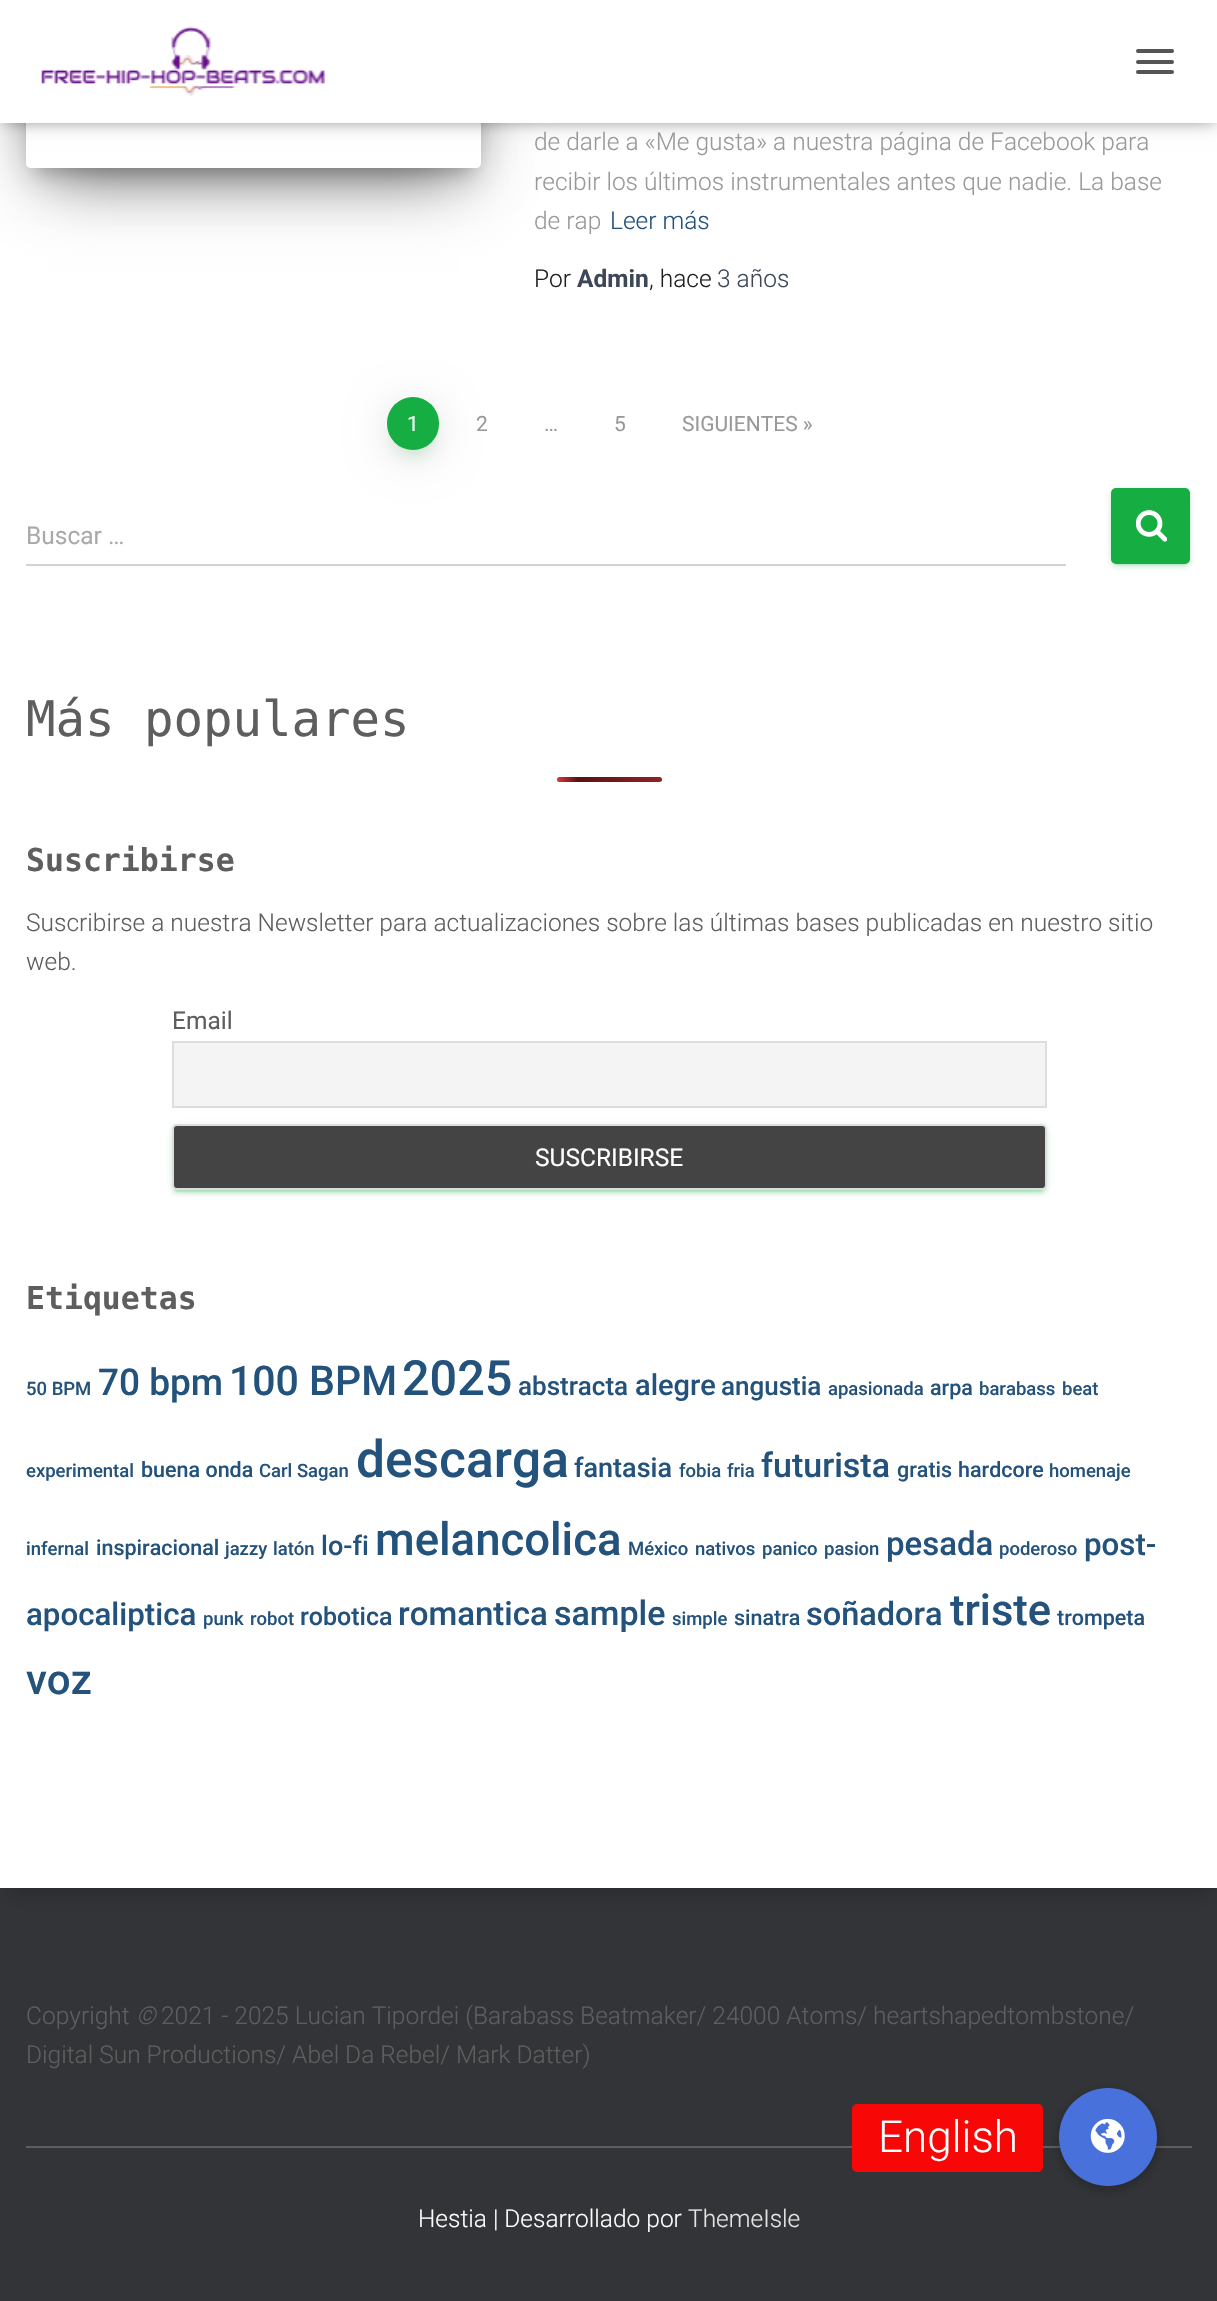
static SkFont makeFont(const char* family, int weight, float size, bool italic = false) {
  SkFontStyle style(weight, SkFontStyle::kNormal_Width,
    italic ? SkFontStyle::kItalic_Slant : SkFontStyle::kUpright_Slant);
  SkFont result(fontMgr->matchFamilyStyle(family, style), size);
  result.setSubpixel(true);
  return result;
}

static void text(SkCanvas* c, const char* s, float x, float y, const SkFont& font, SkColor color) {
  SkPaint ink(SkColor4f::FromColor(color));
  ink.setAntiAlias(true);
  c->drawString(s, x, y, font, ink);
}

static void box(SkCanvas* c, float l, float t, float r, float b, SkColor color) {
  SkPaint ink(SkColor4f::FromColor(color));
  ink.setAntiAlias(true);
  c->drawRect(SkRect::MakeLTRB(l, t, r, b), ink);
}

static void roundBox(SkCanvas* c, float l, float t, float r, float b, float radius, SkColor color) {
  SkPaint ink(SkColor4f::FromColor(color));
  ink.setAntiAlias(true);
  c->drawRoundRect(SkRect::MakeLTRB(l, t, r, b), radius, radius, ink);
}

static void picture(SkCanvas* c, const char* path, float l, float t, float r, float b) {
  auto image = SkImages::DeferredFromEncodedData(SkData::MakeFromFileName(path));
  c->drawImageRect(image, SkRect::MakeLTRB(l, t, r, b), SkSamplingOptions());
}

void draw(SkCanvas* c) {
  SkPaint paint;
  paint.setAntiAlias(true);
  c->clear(0xff323437);
  paint.setColor(0x33000000);
  paint.setMaskFilter(SkMaskFilter::MakeBlur(kNormal_SkBlurStyle, 9));
  c->drawRect(SkRect::MakeLTRB(9, -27, 1209, 1894), paint);
  paint.setMaskFilter(nullptr);
  box(c, 0, 123, 1217, 1888, 0xffffffff);
  paint.setColor(0x1a000000);
  paint.setMaskFilter(SkMaskFilter::MakeBlur(kNormal_SkBlurStyle, 4.5f));
  c->drawRect(SkRect::MakeLTRB(4, 11, 1215, 126), paint);
  paint.setMaskFilter(nullptr);
  paint.setColor(0x1f000000);
  paint.setMaskFilter(SkMaskFilter::MakeBlur(kNormal_SkBlurStyle, 9));
  c->drawRect(SkRect::MakeLTRB(0, 2, 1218, 124), paint);
  paint.setMaskFilter(nullptr);
  paint.setColor(0x6b000000);
  paint.setMaskFilter(SkMaskFilter::MakeBlur(kNormal_SkBlurStyle, 9));
  c->drawRect(SkRect::MakeLTRB(11, 12, 1208, 114), paint);
  paint.setMaskFilter(nullptr);
  c->save();
  c->clipPath(SkPathBuilder(SkPathFillType::kEvenOdd).moveTo(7, 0).lineTo(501, 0).lineTo(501, 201).lineTo(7, 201).close().moveTo(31, -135).lineTo(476, -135).cubicTo(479, -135, 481, -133, 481, -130).lineTo(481, 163).cubicTo(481, 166, 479, 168, 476, 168).lineTo(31, 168).cubicTo(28, 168, 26, 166, 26, 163).lineTo(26, -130).cubicTo(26, -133, 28, -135, 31, -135).close().detach(), true);
  paint.setColor(0x33000000);
  paint.setMaskFilter(SkMaskFilter::MakeBlur(kNormal_SkBlurStyle, 9));
  c->drawRect(SkRect::MakeLTRB(35, -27, 473, 173), paint);
  paint.setMaskFilter(nullptr);
  c->restore();
  c->save();
  c->clipPath(SkPathBuilder(SkPathFillType::kEvenOdd).moveTo(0, 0).lineTo(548, 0).lineTo(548, 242).lineTo(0, 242).close().moveTo(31, -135).lineTo(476, -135).cubicTo(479, -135, 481, -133, 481, -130).lineTo(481, 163).cubicTo(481, 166, 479, 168, 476, 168).lineTo(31, 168).cubicTo(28, 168, 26, 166, 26, 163).lineTo(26, -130).cubicTo(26, -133, 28, -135, 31, -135).close().detach(), true);
  paint.setColor(0x1f000000);
  paint.setMaskFilter(SkMaskFilter::MakeBlur(kNormal_SkBlurStyle, 22));
  c->drawRoundRect(SkRect::MakeLTRB(26, -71, 481, 175), 5, 5, paint);
  paint.setMaskFilter(nullptr);
  c->restore();
  c->save();
  c->clipPath(SkPathBuilder(SkPathFillType::kEvenOdd).moveTo(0, 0).lineTo(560, 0).lineTo(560, 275).lineTo(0, 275).close().moveTo(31, -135).lineTo(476, -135).cubicTo(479, -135, 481, -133, 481, -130).lineTo(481, 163).cubicTo(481, 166, 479, 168, 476, 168).lineTo(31, 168).cubicTo(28, 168, 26, 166, 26, 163).lineTo(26, -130).cubicTo(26, -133, 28, -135, 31, -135).close().detach(), true);
  paint.setColor(0x8f000000);
  paint.setMaskFilter(SkMaskFilter::MakeBlur(kNormal_SkBlurStyle, 33));
  c->drawRect(SkRect::MakeLTRB(47, -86, 460, 175), paint);
  paint.setMaskFilter(nullptr);
  c->restore();
  box(c, 0, 0, 1217, 123, 0xffffffff);
  picture(c, "img_01.png", 41, 26, 326, 96);
  roundBox(c, 1136, 49, 1174, 53, 2, 0xff555555);
  roundBox(c, 1136, 60, 1174, 64, 2, 0xff555555);
  roundBox(c, 1136, 70, 1174, 74, 2, 0xff555555);
  SkFont face1 = makeFont("Roboto", 300, 24.5f);
  text(c, "de darle a «Me gusta» a nuestra página de Facebook para", 534, 150, face1, 0xff999999);
  text(c, "recibir los últimos instrumentales antes que nadie. La base", 534, 190, face1, 0xff999999);
  text(c, "de rap", 534, 229, face1, 0xff999999);
  text(c, "Leer más", 610, 229, face1, 0xff23527c);
  text(c, "Por", 534, 287, face1, 0xff212121);
  SkFont face2 = makeFont("Roboto", 700, 24.5f);
  text(c, "Admin", 577, 287, face2, 0xff3c4858);
  text(c, ", hace", 649, 287, face1, 0xff212121);
  text(c, "3 años", 717, 287, face1, 0xff3c4858);
  paint.setColor(0x3316ad43);
  paint.setMaskFilter(SkMaskFilter::MakeBlur(kNormal_SkBlurStyle, 9));
  c->drawRoundRect(SkRect::MakeLTRB(396, 420, 431, 455), 17.5f, 17.5f, paint);
  paint.setMaskFilter(nullptr);
  paint.setColor(0x1f000000);
  paint.setMaskFilter(SkMaskFilter::MakeBlur(kNormal_SkBlurStyle, 20));
  c->drawRoundRect(SkRect::MakeLTRB(387, 404, 439, 457), 26, 26, paint);
  paint.setMaskFilter(nullptr);
  roundBox(c, 387, 397, 439, 450, 26, 0xff16ad43);
  SkFont face3 = makeFont("Roboto", 400, 21);
  text(c, "1", 407, 431, face3, 0xffffffff);
  text(c, "2", 476, 431, face3, 0xff999999);
  text(c, "…", 544, 431, face3, 0xff999999);
  text(c, "5", 614, 431, face3, 0xff999999);
  text(c, "SIGUIENTES »", 682, 431, face3, 0xff999999);
  SkFont face4 = makeFont("Roboto", 400, 24.5f);
  text(c, "Buscar …", 26, 544, face4, 0xffaaaaaa);
  box(c, 26, 564, 1066, 566, 0xffd2d2d2);
  paint.setColor(0x1f16ad43);
  paint.setMaskFilter(SkMaskFilter::MakeBlur(kNormal_SkBlurStyle, 4.5f));
  c->drawRoundRect(SkRect::MakeLTRB(1111, 490, 1190, 565), 5, 5, paint);
  paint.setMaskFilter(nullptr);
  paint.setColor(0x3316ad43);
  paint.setMaskFilter(SkMaskFilter::MakeBlur(kNormal_SkBlurStyle, 1));
  c->drawRoundRect(SkRect::MakeLTRB(1115, 497, 1187, 565), 2, 2, paint);
  paint.setMaskFilter(nullptr);
  paint.setColor(0x2416ad43);
  paint.setMaskFilter(SkMaskFilter::MakeBlur(kNormal_SkBlurStyle, 2));
  c->drawRoundRect(SkRect::MakeLTRB(1111, 492, 1190, 567), 5, 5, paint);
  paint.setMaskFilter(nullptr);
  roundBox(c, 1111, 488, 1190, 564, 5, 0xff16ad43);
  picture(c, "img_02.png", 1136, 510, 1167, 542);
  SkFont face5 = makeFont("DejaVu Sans Mono", 400, 49);
  text(c, "Más populares", 26, 736, face5, 0xff5e5e5e);
  {
    const SkColor colors[] = {0xffdd3737, 0xff571313, 0xffdd3737};
    const float stops[] = {0, 0.1f, 1};
    const SkPoint ends[] = {{557, 780}, {767, 780}};
    paint.setShader(SkGradientShader::MakeLinear(ends, colors, stops, 3, SkTileMode::kClamp));
    paint.setAlpha(255);
  }
  c->drawRoundRect(SkRect::MakeLTRB(557, 777, 662, 782), 2.5f, 2.5f, paint);
  SkFont face6 = makeFont("DejaVu Sans Mono", 700, 31.5f);
  text(c, "Suscribirse", 26, 871, face6, 0xff5e5e5e);
  text(c, "Suscribirse a nuestra Newsletter para actualizaciones sobre las últimas bases publicadas en nuestro sitio", 26, 931, face1, 0xff5e5e5e);
  text(c, "web.", 26, 970, face1, 0xff5e5e5e);
  text(c, "Email", 172, 1029, face4, 0xff5e5e5e);
  paint.setShader(nullptr);
  paint.setColor(0xfff4f4f4);
  c->drawRect(SkRect::MakeLTRB(173, 1042, 1046, 1107), paint);
  paint.setStyle(SkPaint::kStroke_Style);
  paint.setStrokeWidth(2);
  paint.setColor(0xffdddddd);
  c->drawRect(SkRect::MakeLTRB(173, 1042, 1046, 1107), paint);
  paint.setStyle(SkPaint::kFill_Style);
  paint.setColor(0x1f16ad43);
  paint.setMaskFilter(SkMaskFilter::MakeBlur(kNormal_SkBlurStyle, 4.5f));
  c->drawRoundRect(SkRect::MakeLTRB(172, 1125, 1047, 1192), 5, 5, paint);
  paint.setMaskFilter(nullptr);
  paint.setColor(0x3316ad43);
  paint.setMaskFilter(SkMaskFilter::MakeBlur(kNormal_SkBlurStyle, 1));
  c->drawRoundRect(SkRect::MakeLTRB(175, 1132, 1043, 1192), 2, 2, paint);
  paint.setMaskFilter(nullptr);
  paint.setColor(0x2416ad43);
  paint.setMaskFilter(SkMaskFilter::MakeBlur(kNormal_SkBlurStyle, 2));
  c->drawRoundRect(SkRect::MakeLTRB(172, 1127, 1047, 1194), 5, 5, paint);
  paint.setMaskFilter(nullptr);
  paint.setColor(0xff444444);
  c->drawRoundRect(SkRect::MakeLTRB(173, 1125, 1046, 1189), 4, 4, paint);
  paint.setStyle(SkPaint::kStroke_Style);
  paint.setColor(0xffdddddd);
  c->drawRoundRect(SkRect::MakeLTRB(173, 1125, 1046, 1189), 4, 4, paint);
  text(c, "SUSCRIBIRSE", 535, 1166, face4, 0xffffffff);
  text(c, "Etiquetas", 26, 1309, face6, 0xff5e5e5e);
  SkFont face7 = makeFont("Roboto", 500, 18.5f);
  text(c, "50 BPM", 26, 1395, face7, 0xff23527c);
  SkFont face8 = makeFont("Roboto", 500, 37);
  text(c, "70 bpm", 98, 1395, face8, 0xff23527c);
  SkFont face9 = makeFont("Roboto", 500, 41);
  text(c, "100 BPM", 229, 1395, face9, 0xff23527c);
  SkFont face10 = makeFont("Roboto", 500, 48.5f);
  text(c, "2025", 402, 1395, face10, 0xff23527c);
  SkFont face11 = makeFont("Roboto", 500, 26);
  text(c, "abstracta", 518, 1395, face11, 0xff23527c);
  SkFont face12 = makeFont("Roboto", 500, 29);
  text(c, "alegre", 635, 1395, face12, 0xff23527c);
  text(c, "angustia", 721, 1395, face11, 0xff23527c);
  text(c, "apasionada", 828, 1395, face7, 0xff23527c);
  SkFont face13 = makeFont("Roboto", 500, 21.5f);
  text(c, "arpa", 930, 1395, face13, 0xff23527c);
  text(c, "barabass", 979, 1395, face7, 0xff23527c);
  text(c, "beat", 1062, 1395, face7, 0xff23527c);
  text(c, "experimental", 26, 1477, face7, 0xff23527c);
  text(c, "buena onda", 141, 1477, face13, 0xff23527c);
  text(c, "Carl Sagan", 259, 1477, face7, 0xff23527c);
  SkFont face14 = makeFont("Roboto", 500, 51.5f);
  text(c, "descarga", 356, 1477, face14, 0xff23527c);
  SkFont face15 = makeFont("Roboto", 500, 27);
  text(c, "fantasia", 574, 1477, face15, 0xff23527c);
  text(c, "fobia", 679, 1477, face7, 0xff23527c);
  text(c, "fria", 727, 1477, face7, 0xff23527c);
  SkFont face16 = makeFont("Roboto", 500, 34);
  text(c, "futurista", 761, 1477, face16, 0xff23527c);
  text(c, "gratis", 897, 1477, face13, 0xff23527c);
  text(c, "hardcore", 958, 1477, face13, 0xff23527c);
  text(c, "homenaje", 1049, 1477, face7, 0xff23527c);
  text(c, "infernal", 26, 1555, face7, 0xff23527c);
  text(c, "inspiracional", 96, 1555, face13, 0xff23527c);
  text(c, "jazzy", 225, 1555, face7, 0xff23527c);
  text(c, "latón", 273, 1555, face7, 0xff23527c);
  text(c, "lo-fi", 321, 1555, face15, 0xff23527c);
  SkFont face17 = makeFont("Roboto", 500, 45.5f);
  text(c, "melancolica", 375, 1555, face17, 0xff23527c);
  text(c, "México", 628, 1555, face7, 0xff23527c);
  text(c, "nativos", 695, 1555, face7, 0xff23527c);
  text(c, "panico", 762, 1555, face7, 0xff23527c);
  text(c, "pasion", 824, 1555, face7, 0xff23527c);
  SkFont face18 = makeFont("Roboto", 500, 33);
  text(c, "pesada", 886, 1555, face18, 0xff23527c);
  text(c, "poderoso", 999, 1555, face7, 0xff23527c);
  SkFont face19 = makeFont("Roboto", 500, 31.25f);
  text(c, "post-", 1084, 1555, face19, 0xff23527c);
  text(c, "apocaliptica", 26, 1625, face19, 0xff23527c);
  text(c, "punk", 203, 1625, face7, 0xff23527c);
  text(c, "robot", 250, 1625, face7, 0xff23527c);
  SkFont face20 = makeFont("Roboto", 500, 25);
  text(c, "robotica", 300, 1625, face20, 0xff23527c);
  text(c, "romantica", 398, 1625, face18, 0xff23527c);
  text(c, "sample", 554, 1625, face16, 0xff23527c);
  text(c, "simple", 672, 1625, face7, 0xff23527c);
  text(c, "sinatra", 734, 1625, face13, 0xff23527c);
  SkFont face21 = makeFont("Roboto", 500, 32.5f);
  text(c, "soñadora", 806, 1625, face21, 0xff23527c);
  SkFont face22 = makeFont("Roboto", 500, 43.5f);
  text(c, "triste", 950, 1625, face22, 0xff23527c);
  text(c, "trompeta", 1057, 1625, face13, 0xff23527c);
  SkFont face23 = makeFont("Roboto", 500, 42);
  text(c, "voz", 26, 1694, face23, 0xff23527c);
  text(c, "Copyright", 26, 2024, face1, 0xff5e5e5e);
  SkFont face24 = makeFont("Roboto", 300, 24.5f, true);
  text(c, "©", 136, 2024, face24, 0xff5e5e5e);
  text(c, "2021 - 2025 Lucian Tipordei (Barabass Beatmaker/ 24000 Atoms/ heartshapedtombstone/", 161, 2024, face1, 0xff5e5e5e);
  text(c, "Digital Sun Productions/ Abel Da Rebel/ Mark Datter)", 26, 2063, face1, 0xff5e5e5e);
  box(c, 26, 2146, 1192, 2148, 0xff5e5e5e);
  text(c, "Hestia | Desarrollado por", 418, 2227, face1, 0xffffffff);
  text(c, "ThemeIsle", 688, 2227, face1, 0xffe2e3e3);
  paint.setStyle(SkPaint::kFill_Style);
  paint.setColor(0x33000000);
  paint.setMaskFilter(SkMaskFilter::MakeBlur(kNormal_SkBlurStyle, 5));
  c->drawRoundRect(SkRect::MakeLTRB(1057, 2090, 1159, 2191), 50.5f, 50.5f, paint);
  paint.setMaskFilter(nullptr);
  paint.setColor(0xff4871dc);
  c->drawCircle(1108, 2137, 49, paint);
  roundBox(c, 852, 2104, 1043, 2172, 5, 0xfff80707);
  SkFont face25 = makeFont("Roboto", 300, 44);
  text(c, "English", 878, 2152, face25, 0xffffffff);
  picture(c, "img_03.png", 1090, 2118, 1125, 2153);
}
